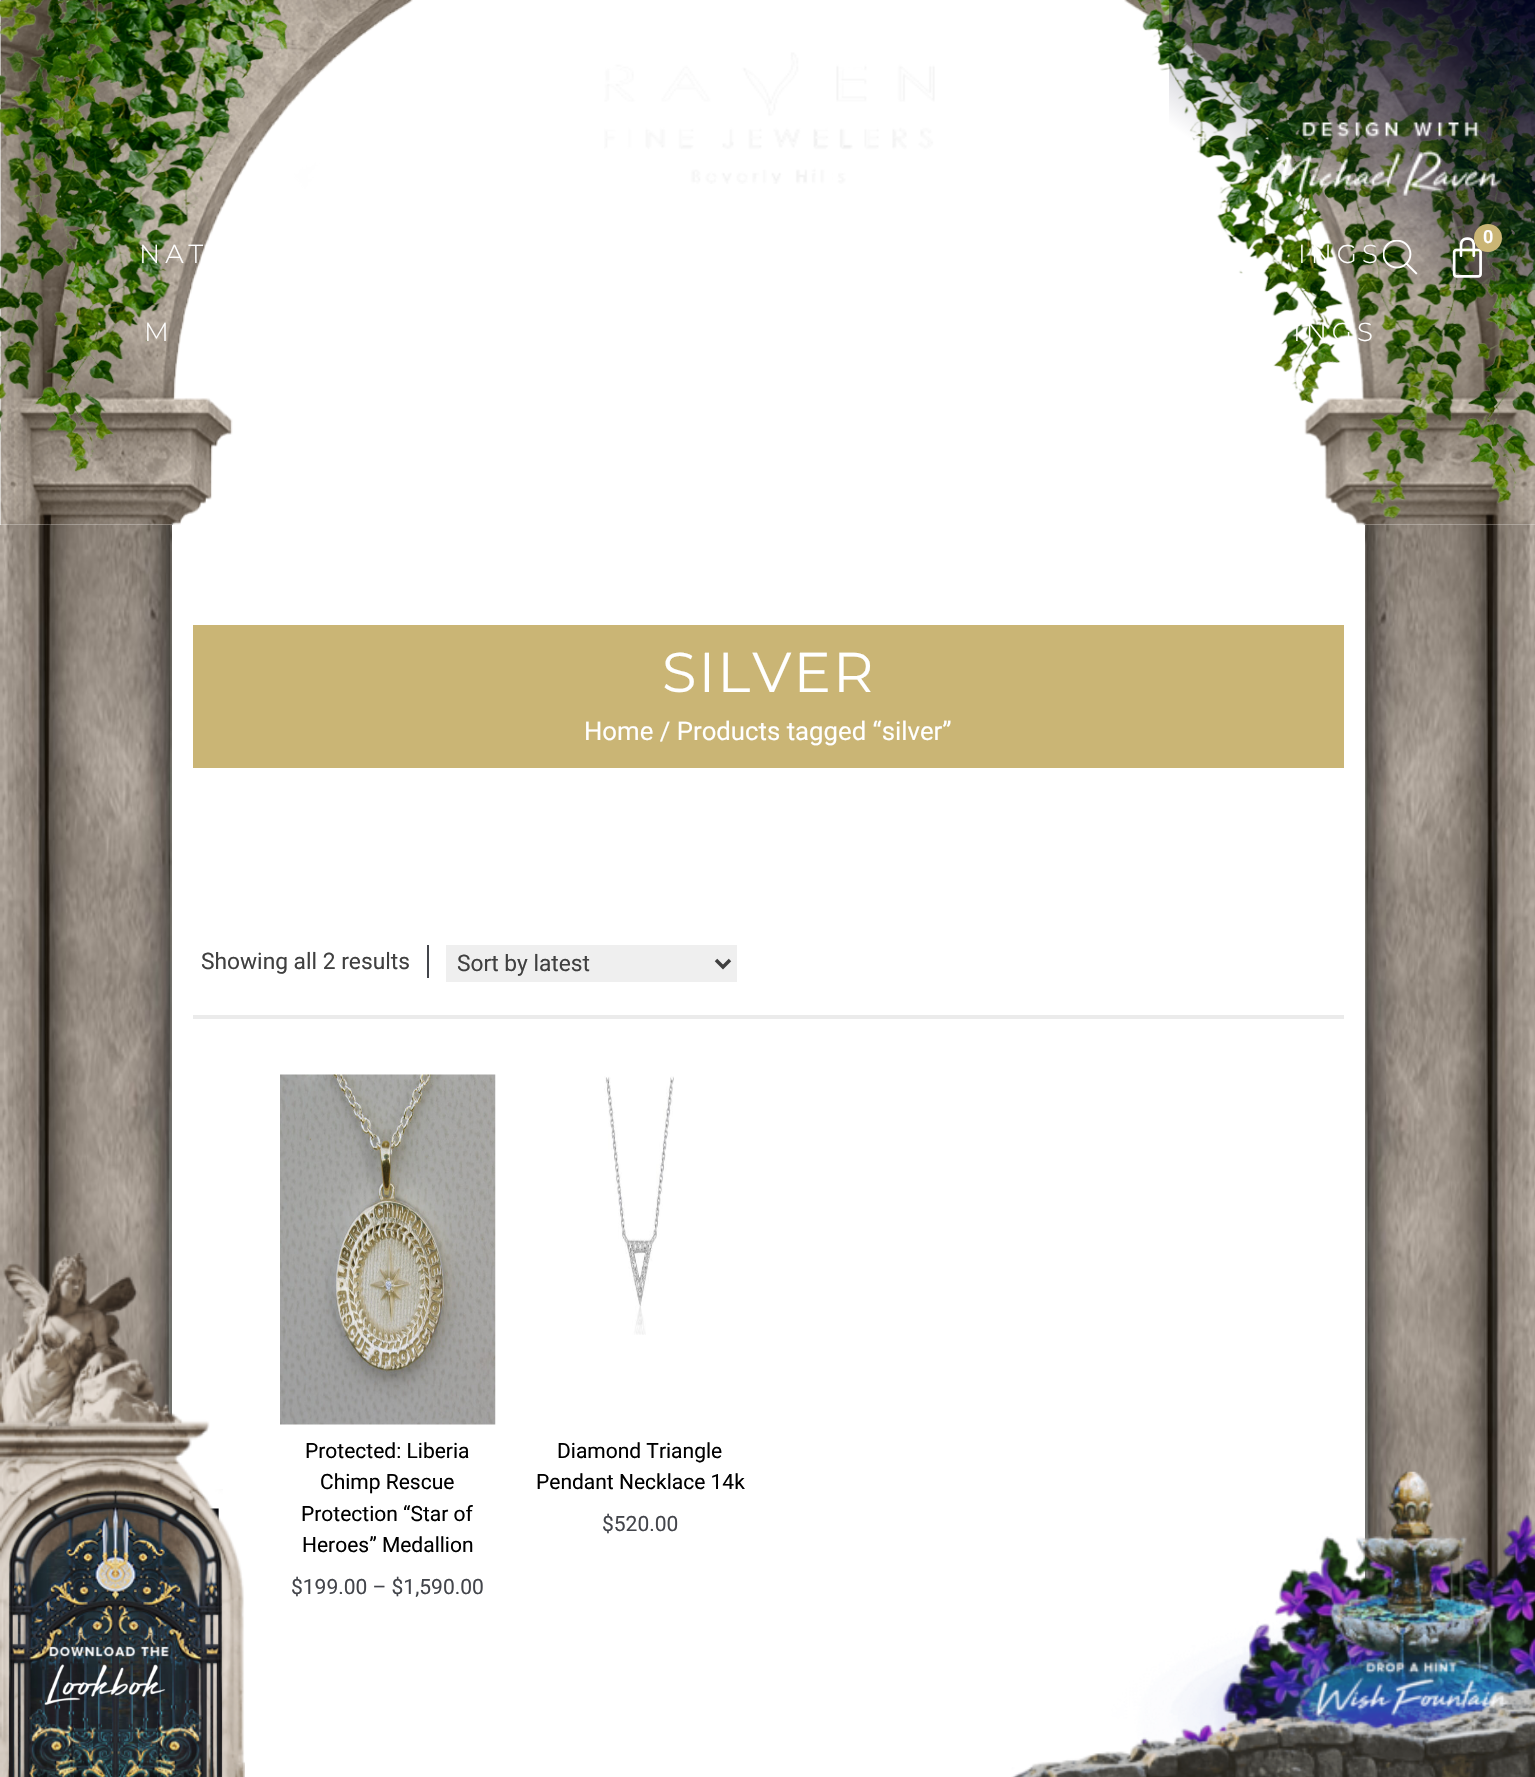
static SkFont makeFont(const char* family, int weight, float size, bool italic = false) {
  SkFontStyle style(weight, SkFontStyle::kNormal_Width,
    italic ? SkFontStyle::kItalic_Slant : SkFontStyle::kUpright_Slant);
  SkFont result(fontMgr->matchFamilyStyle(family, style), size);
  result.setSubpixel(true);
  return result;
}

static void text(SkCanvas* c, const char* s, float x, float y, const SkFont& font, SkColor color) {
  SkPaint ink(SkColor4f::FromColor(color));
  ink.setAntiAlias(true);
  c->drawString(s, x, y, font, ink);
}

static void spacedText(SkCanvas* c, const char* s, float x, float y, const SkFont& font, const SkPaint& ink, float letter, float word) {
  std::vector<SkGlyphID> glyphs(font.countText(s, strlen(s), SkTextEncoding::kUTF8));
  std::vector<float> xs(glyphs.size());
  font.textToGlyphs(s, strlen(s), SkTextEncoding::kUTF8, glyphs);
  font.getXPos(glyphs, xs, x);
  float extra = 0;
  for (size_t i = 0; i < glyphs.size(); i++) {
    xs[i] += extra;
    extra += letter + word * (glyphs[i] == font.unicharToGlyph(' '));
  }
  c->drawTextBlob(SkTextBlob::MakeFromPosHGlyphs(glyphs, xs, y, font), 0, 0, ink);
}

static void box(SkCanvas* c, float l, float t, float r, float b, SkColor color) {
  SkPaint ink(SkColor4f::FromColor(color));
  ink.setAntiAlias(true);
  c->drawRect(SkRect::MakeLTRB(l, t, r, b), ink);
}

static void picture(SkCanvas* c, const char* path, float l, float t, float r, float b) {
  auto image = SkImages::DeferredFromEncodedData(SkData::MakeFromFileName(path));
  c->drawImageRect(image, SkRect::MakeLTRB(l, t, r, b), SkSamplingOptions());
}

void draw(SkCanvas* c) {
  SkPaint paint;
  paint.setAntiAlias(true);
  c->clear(0xffffffff);
  picture(c, "img_01.png", 0, 0, 413, 525);
  picture(c, "img_02.png", 604, 52, 935, 184);
  picture(c, "img_03.png", 1124, 0, 1535, 525);
  picture(c, "img_04.png", 0, 0, 288, 472);
  picture(c, "img_06.png", 1362, 0, 1535, 519);
  picture(c, "img_05.png", 1137, 0, 1448, 419);
  SkFont face1 = makeFont("Montserrat", 300, 26);
  paint.setColor(0xffffffff);
  spacedText(c, "INGS", 1298, 263, face1, paint, 5, 0);
  {
    const SkColor colors[] = {0xff020024, 0x00020024};
    const float stops[] = {0, 0.72f};
    const SkPoint ends[] = {{1510, -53}, {1248, 337}};
    paint.setShader(SkGradientShader::MakeLinear(ends, colors, stops, 2, SkTileMode::kClamp));
    paint.setAlpha(255);
  }
  c->drawRect(SkRect::MakeLTRB(1169, 0, 1535, 284), paint);
  picture(c, "img_07.png", 1256, 122, 1502, 196);
  picture(c, "img_08.png", 1452, 237, 1482, 278);
  paint.setShader(nullptr);
  paint.setColor(0xffcab575);
  c->drawCircle(1488, 238, 14, paint);
  SkFont face2 = makeFont("Roboto", 600, 18);
  text(c, "0", 1483, 243, face2, 0xffffffff);
  paint.setColor(0xffffffff);
  spacedText(c, "NAT", 139, 263, face1, paint, 5, 0);
  spacedText(c, "M", 144, 341, face1, paint, 5, 0);
  spacedText(c, "INGS", 1293, 341, face1, paint, 5, 0);
  picture(c, "img_09.png", 1383, 240, 1418, 275);
  picture(c, "img_10.png", 0, 525, 172, 1777);
  picture(c, "img_11.png", 1365, 525, 1535, 1583);
  picture(c, "img_16.png", 26, 1508, 219, 1777);
  picture(c, "img_12.png", 0, 1253, 245, 1777);
  picture(c, "img_13.png", 1011, 1471, 1535, 1777);
  picture(c, "img_14.png", 8, 1490, 117, 1777);
  picture(c, "img_15.png", 114, 1489, 223, 1777);
  picture(c, "img_17.png", 44, 1646, 169, 1706);
  box(c, 193, 625, 1344, 768, 0xffcab575);
  SkFont face3 = makeFont("Montserrat", 400, 56);
  spacedText(c, "SILVER", 662, 692, face3, paint, 2, 0);
  SkFont face4 = makeFont("Roboto", 400, 25.75f);
  text(c, "Home / Products tagged “silver”", 584, 740, face4, 0xffffffff);
  box(c, 427, 945, 429, 978, 0xff43454b);
  SkFont face5 = makeFont("Roboto", 400, 22.75f);
  text(c, "Showing all 2 results", 201, 969, face5, 0xff404040);
  box(c, 446, 945, 737, 982, 0xffefefef);
  paint.setStyle(SkPaint::kStroke_Style);
  paint.setStrokeWidth(3.5f);
  paint.setColor(0xff404040);
  c->drawPath(SkPathBuilder().moveTo(716, 960).lineTo(723, 967).lineTo(730, 960).detach(), paint);
  text(c, "Sort by latest", 457, 971, face5, 0xff404040);
  box(c, 193, 1015, 1344, 1019, 0xffebebeb);
  picture(c, "img_18.png", 280, 1074, 496, 1425);
  SkFont face6 = makeFont("Roboto", 400, 21);
  text(c, "Protected: Liberia", 305, 1458, face6, 0xff000000);
  text(c, "Chimp Rescue", 320, 1489, face6, 0xff000000);
  text(c, "Protection “Star of", 301, 1521, face6, 0xff000000);
  text(c, "Heroes” Medallion", 302, 1552, face6, 0xff000000);
  text(c, "$199.00 – $1,590.00", 291, 1594, face6, 0xff43454b);
  picture(c, "img_19.png", 604, 1076, 674, 1335);
  text(c, "Diamond Triangle", 557, 1458, face6, 0xff000000);
  text(c, "Pendant Necklace 14k", 536, 1489, face6, 0xff000000);
  text(c, "$520.00", 602, 1531, face6, 0xff43454b);
}
